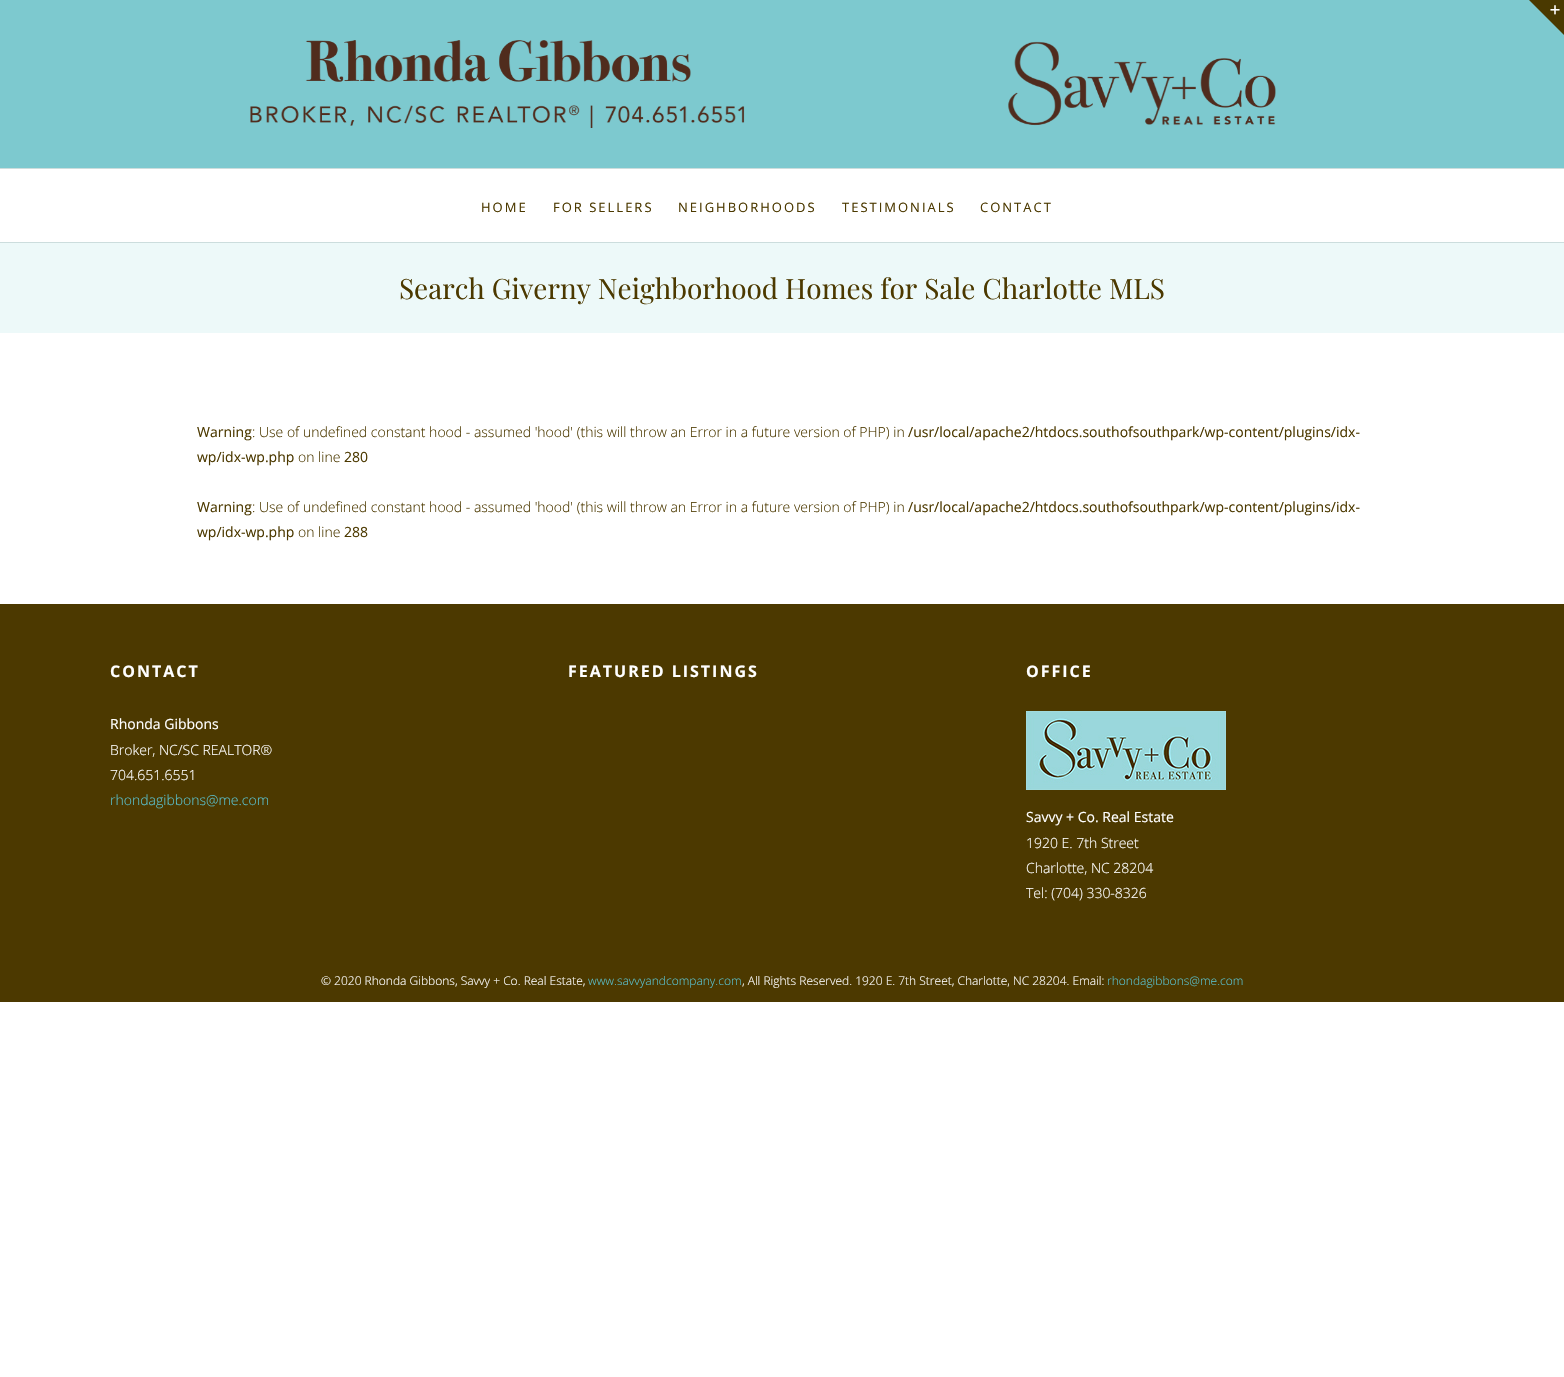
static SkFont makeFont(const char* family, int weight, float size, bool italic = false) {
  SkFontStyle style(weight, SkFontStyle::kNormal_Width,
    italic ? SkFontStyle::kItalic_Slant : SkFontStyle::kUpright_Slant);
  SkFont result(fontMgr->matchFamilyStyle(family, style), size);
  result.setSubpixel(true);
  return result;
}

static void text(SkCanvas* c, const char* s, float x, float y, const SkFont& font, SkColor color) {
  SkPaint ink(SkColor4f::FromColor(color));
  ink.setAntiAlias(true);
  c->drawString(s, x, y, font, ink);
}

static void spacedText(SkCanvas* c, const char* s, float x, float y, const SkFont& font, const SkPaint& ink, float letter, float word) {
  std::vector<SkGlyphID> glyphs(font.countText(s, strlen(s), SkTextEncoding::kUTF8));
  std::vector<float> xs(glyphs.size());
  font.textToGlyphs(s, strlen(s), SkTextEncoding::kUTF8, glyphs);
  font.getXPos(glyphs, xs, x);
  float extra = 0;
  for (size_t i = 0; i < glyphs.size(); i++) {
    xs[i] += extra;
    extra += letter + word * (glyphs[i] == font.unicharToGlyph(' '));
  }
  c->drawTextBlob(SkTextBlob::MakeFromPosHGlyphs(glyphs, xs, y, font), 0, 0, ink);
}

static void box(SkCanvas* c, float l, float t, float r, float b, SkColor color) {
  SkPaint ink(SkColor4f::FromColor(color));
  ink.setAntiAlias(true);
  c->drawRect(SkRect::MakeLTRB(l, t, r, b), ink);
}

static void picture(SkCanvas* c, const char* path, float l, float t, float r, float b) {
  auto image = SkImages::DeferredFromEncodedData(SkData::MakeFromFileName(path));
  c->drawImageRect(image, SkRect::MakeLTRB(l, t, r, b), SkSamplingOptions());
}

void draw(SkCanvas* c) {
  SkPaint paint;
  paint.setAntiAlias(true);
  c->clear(0xffffffff);
  box(c, 0, 0, 1564, 168, 0xff7dc9cf);
  paint.setColor(0xff4a3900);
  c->drawPath(SkPathBuilder().moveTo(1529, 0).lineTo(1564, 0).lineTo(1564, 35).close().detach(), paint);
  picture(c, "img_01.png", 1550, 5, 1560, 15);
  box(c, 0, 168, 1564, 169, 0xffccdddd);
  picture(c, "img_02.png", 250, 40, 1276, 128);
  box(c, 0, 242, 1564, 243, 0xffccdddd);
  SkFont face1 = makeFont("Open Sans", 400, 13);
  paint.setColor(0xff4c3900);
  spacedText(c, "HOME", 481, 212, face1, paint, 2, 0);
  spacedText(c, "FOR SELLERS", 553, 212, face1, paint, 2, 0);
  spacedText(c, "NEIGHBORHOODS", 678, 212, face1, paint, 2, 0);
  spacedText(c, "TESTIMONIALS", 842, 212, face1, paint, 2, 0);
  spacedText(c, "CONTACT", 980, 212, face1, paint, 2, 0);
  box(c, 0, 243, 1564, 333, 0xffedf9f9);
  SkFont face2 = makeFont("Playfair Display", 400, 28);
  text(c, "Search Giverny Neighborhood Homes for Sale Charlotte MLS", 399, 299, face2, 0xff4c3900);
  SkFont face3 = makeFont("Open Sans", 400, 14);
  text(c, "Warning", 197, 437, face3, 0xff4c3900);
  SkFont face4 = makeFont("Open Sans", 300, 14);
  text(c, ": Use of undefined constant hood - assumed 'hood' (this will throw an Error in a future version of PHP) in", 252, 437, face4, 0xff4c3900);
  text(c, "/usr/local/apache2/htdocs.southofsouthpark/wp-content/plugins/idx-", 908, 437, face3, 0xff4c3900);
  text(c, "wp/idx-wp.php", 197, 462, face3, 0xff4c3900);
  text(c, "on line", 298, 462, face4, 0xff4c3900);
  text(c, "280", 344, 462, face3, 0xff4c3900);
  text(c, "Warning", 197, 512, face3, 0xff4c3900);
  text(c, ": Use of undefined constant hood - assumed 'hood' (this will throw an Error in a future version of PHP) in", 252, 512, face4, 0xff4c3900);
  text(c, "/usr/local/apache2/htdocs.southofsouthpark/wp-content/plugins/idx-", 908, 512, face3, 0xff4c3900);
  text(c, "wp/idx-wp.php", 197, 537, face3, 0xff4c3900);
  text(c, "on line", 298, 537, face4, 0xff4c3900);
  text(c, "288", 344, 537, face3, 0xff4c3900);
  box(c, 0, 604, 1564, 1002, 0xff4c3900);
  SkFont face5 = makeFont("Open Sans", 700, 16);
  paint.setColor(0xffffffff);
  spacedText(c, "CONTACT", 110, 677, face5, paint, 2, 0);
  text(c, "Rhonda Gibbons", 110, 729, face3, 0xffffffff);
  text(c, "Broker, NC/SC REALTOR®", 110, 755, face4, 0xffffffff);
  text(c, "704.651.6551", 110, 780, face4, 0xffffffff);
  text(c, "rhondagibbons@me.com", 110, 805, face4, 0xff5ac1ce);
  spacedText(c, "FEATURED LISTINGS", 568, 677, face5, paint, 2, 0);
  spacedText(c, "OFFICE", 1026, 677, face5, paint, 2, 0);
  picture(c, "img_03.png", 1026, 711, 1226, 790);
  text(c, "Savvy + Co. Real Estate", 1026, 822, face3, 0xffffffff);
  text(c, "1920 E. 7th Street", 1026, 848, face4, 0xffffffff);
  text(c, "Charlotte, NC 28204", 1026, 873, face4, 0xffffffff);
  text(c, "Tel: (704) 330-8326", 1026, 898, face4, 0xffffffff);
  SkFont face6 = makeFont("Open Sans", 300, 12);
  text(c, "© 2020 Rhonda Gibbons, Savvy + Co. Real Estate,", 321, 985, face6, 0xffffffff);
  text(c, "www.savvyandcompany.com", 588, 985, face6, 0xff5ac1ce);
  text(c, ", All Rights Reserved. 1920 E. 7th Street, Charlotte, NC 28204. Email:", 742, 985, face6, 0xffffffff);
  text(c, "rhondagibbons@me.com", 1107, 985, face6, 0xff5ac1ce);
}
